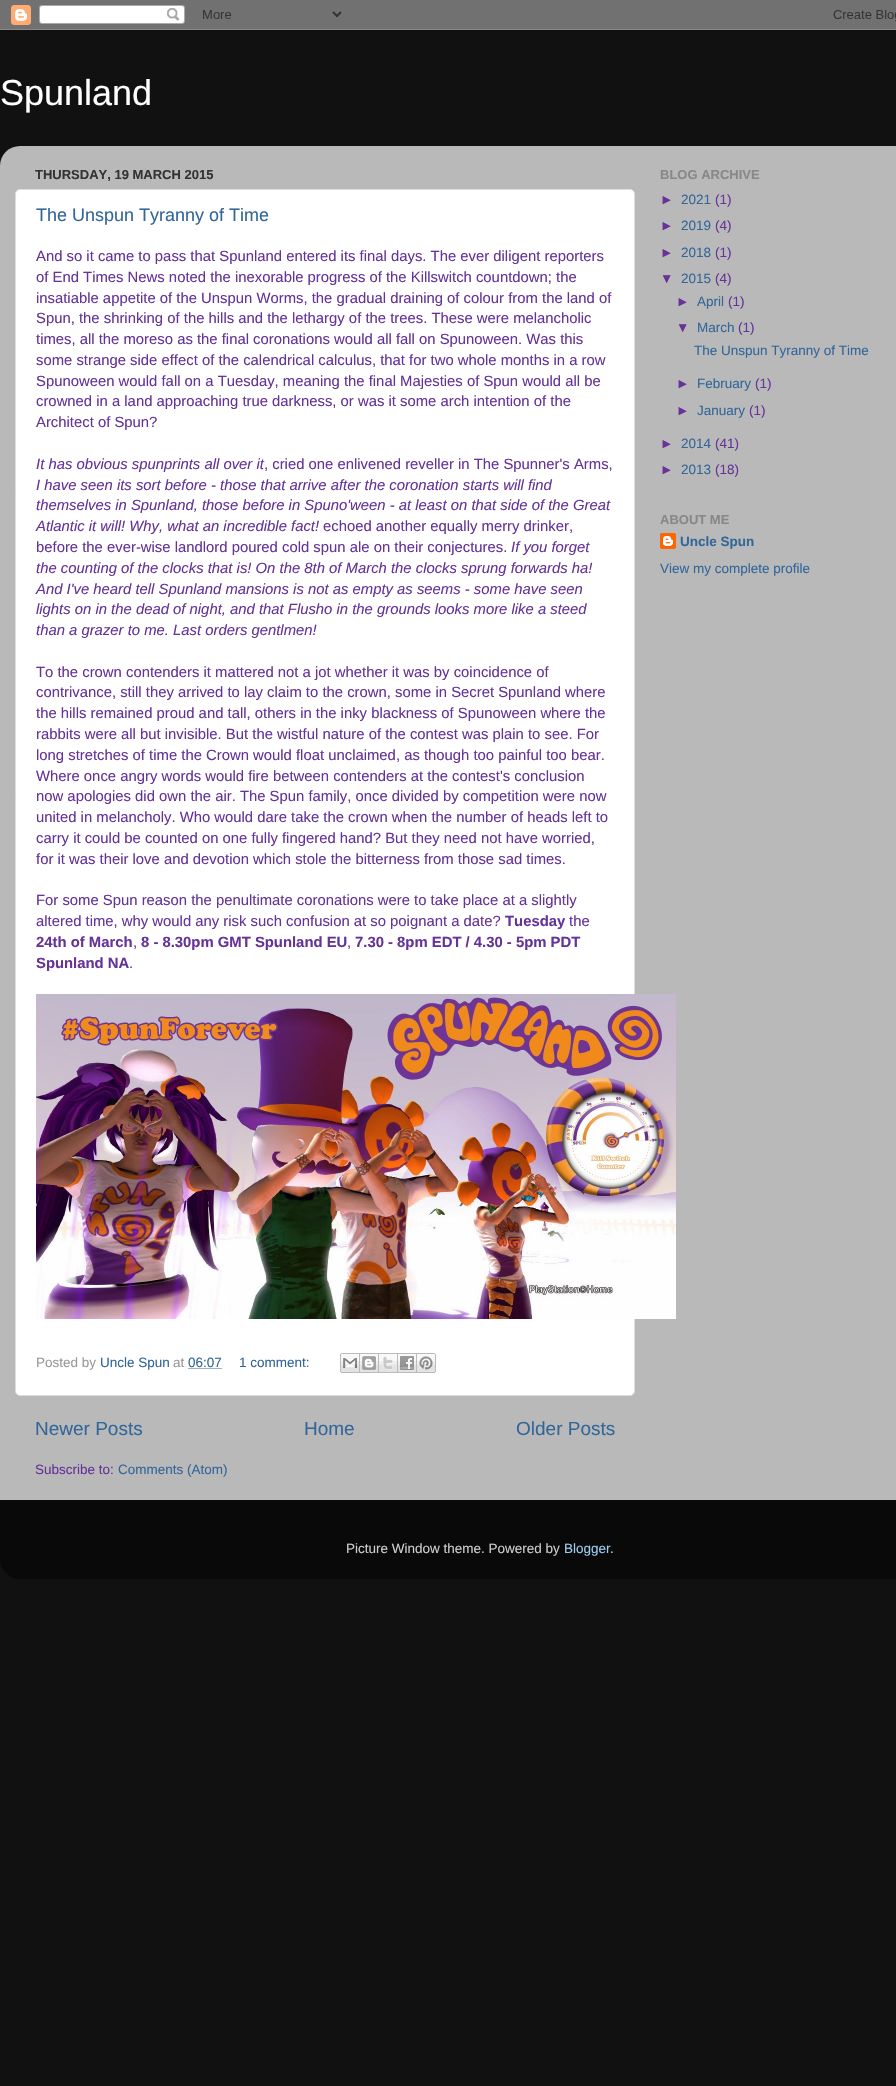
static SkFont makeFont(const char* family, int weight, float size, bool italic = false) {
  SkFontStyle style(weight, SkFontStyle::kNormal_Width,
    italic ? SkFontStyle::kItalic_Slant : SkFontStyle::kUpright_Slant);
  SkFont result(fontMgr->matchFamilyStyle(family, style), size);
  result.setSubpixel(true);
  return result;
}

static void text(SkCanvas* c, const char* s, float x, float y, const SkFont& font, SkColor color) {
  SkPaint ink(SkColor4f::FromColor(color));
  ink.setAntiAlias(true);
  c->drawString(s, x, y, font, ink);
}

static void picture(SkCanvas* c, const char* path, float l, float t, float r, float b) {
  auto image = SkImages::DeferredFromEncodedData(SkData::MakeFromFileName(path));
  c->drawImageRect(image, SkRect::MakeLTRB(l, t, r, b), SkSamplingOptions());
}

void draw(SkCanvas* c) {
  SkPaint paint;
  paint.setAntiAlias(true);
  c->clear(0xff111111);
  picture(c, "img_01.png", 0, 0, 896, 30);
  SkFont face1 = makeFont("Liberation Sans", 400, 36);
  text(c, "Spunland", 0, 105, face1, 0xffffffff);
  picture(c, "img_02.png", 0, 146, 896, 1500);
  SkFont face2 = makeFont("Liberation Sans", 700, 13);
  text(c, "THURSDAY, 19 MARCH 2015", 35, 179, face2, 0xff333333);
  paint.setColor(0xffffffff);
  c->drawRoundRect(SkRect::MakeLTRB(15.5f, 189.5f, 634.5f, 1395.5f), 4.5f, 4.5f, paint);
  paint.setStyle(SkPaint::kStroke_Style);
  paint.setStrokeWidth(1);
  paint.setColor(0xffdddddd);
  c->drawRoundRect(SkRect::MakeLTRB(15.5f, 189.5f, 634.5f, 1395.5f), 4.5f, 4.5f, paint);
  SkFont face3 = makeFont("Liberation Sans", 400, 18);
  text(c, "The Unspun Tyranny of Time", 36, 221, face3, 0xff336699);
  SkFont face4 = makeFont("Liberation Sans", 400, 14.85f);
  text(c, "And so it came to pass that Spunland entered its final days. The ever diligent reporters", 36, 261, face4, 0xff663399);
  text(c, "of End Times News noted the inexorable progress of the Killswitch countdown; the", 36, 282, face4, 0xff663399);
  text(c, "insatiable appetite of the Unspun Worms, the gradual draining of colour from the land of", 36, 303, face4, 0xff663399);
  text(c, "Spun, the shrinking of the hills and the lethargy of the trees. These were melancholic", 36, 323, face4, 0xff663399);
  text(c, "times, all the moreso as the final coronations would all fall on Spunoween. Was this", 36, 344, face4, 0xff663399);
  text(c, "some strange side effect of the calendrical calculus, that for two whole months in a row", 36, 365, face4, 0xff663399);
  text(c, "Spunoween would fall on a Tuesday, meaning the final Majesties of Spun would all be", 36, 386, face4, 0xff663399);
  text(c, "crowned in a land approaching true darkness, or was it some arch intention of the", 36, 406, face4, 0xff663399);
  text(c, "Architect of Spun?", 36, 427, face4, 0xff663399);
  SkFont face5 = makeFont("Liberation Sans", 400, 14.85f, true);
  text(c, "It has obvious spunprints all over it", 36, 469, face5, 0xff663399);
  text(c, ", cried one enlivened reveller in The Spunner's Arms,", 264, 469, face4, 0xff663399);
  text(c, "I have seen its sort before - those that arrive after the coronation starts will find", 36, 490, face5, 0xff663399);
  text(c, "themselves in Spunland, those before in Spuno'ween - at least on that side of the Great", 36, 510, face5, 0xff663399);
  text(c, "Atlantic it will! Why, what an incredible fact!", 36, 531, face5, 0xff663399);
  text(c, "echoed another equally merry drinker,", 323, 531, face4, 0xff663399);
  text(c, "before the ever-wise landlord poured cold spun ale on their conjectures.", 36, 552, face4, 0xff663399);
  text(c, "If you forget", 511, 552, face5, 0xff663399);
  text(c, "the counting of the clocks that is! On the 8th of March the clocks sprung forwards ha!", 36, 573, face5, 0xff663399);
  text(c, "And I've heard tell Spunland mansions is not as empty as seems - some have seen", 36, 594, face5, 0xff663399);
  text(c, "lights on in the dead of night, and that Flusho in the grounds looks more like a steed", 36, 614, face5, 0xff663399);
  text(c, "than a grazer to me. Last orders gentlmen!", 36, 635, face5, 0xff663399);
  text(c, "To the crown contenders it mattered not a jot whether it was by coincidence of", 36, 677, face4, 0xff663399);
  text(c, "contrivance, still they arrived to lay claim to the crown, some in Secret Spunland where", 36, 697, face4, 0xff663399);
  text(c, "the hills remained proud and tall, others in the inky blackness of Spunoween where the", 36, 718, face4, 0xff663399);
  text(c, "rabbits were all but invisible. But the wistful nature of the contest was plain to see. For", 36, 739, face4, 0xff663399);
  text(c, "long stretches of time the Crown would float unclaimed, as though too painful too bear.", 36, 760, face4, 0xff663399);
  text(c, "Where once angry words would fire between contenders at the contest's conclusion", 36, 781, face4, 0xff663399);
  text(c, "now apologies did own the air. The Spun family, once divided by competition were now", 36, 801, face4, 0xff663399);
  text(c, "united in melancholy. Who would dare take the crown when the number of heads left to", 36, 822, face4, 0xff663399);
  text(c, "carry it could be counted on one fully fingered hand? But they need not have worried,", 36, 843, face4, 0xff663399);
  text(c, "for it was their love and devotion which stole the bitterness from those sad times.", 36, 864, face4, 0xff663399);
  text(c, "For some Spun reason the penultimate coronations were to take place at a slightly", 36, 905, face4, 0xff663399);
  text(c, "altered time, why would any risk such confusion at so poignant a date?", 36, 926, face4, 0xff663399);
  SkFont face6 = makeFont("Liberation Sans", 700, 14.85f);
  text(c, "Tuesday", 505, 926, face6, 0xff663399);
  text(c, "the", 569, 926, face4, 0xff663399);
  text(c, "24th of March", 36, 947, face6, 0xff663399);
  text(c, ",", 133, 947, face4, 0xff663399);
  text(c, "8 - 8.30pm GMT Spunland EU", 141, 947, face6, 0xff663399);
  text(c, ",", 347, 947, face4, 0xff663399);
  text(c, "7.30 - 8pm EDT / 4.30 - 5pm PDT", 355, 947, face6, 0xff663399);
  text(c, "Spunland NA", 36, 968, face6, 0xff663399);
  text(c, ".", 129, 968, face4, 0xff663399);
  picture(c, "img_03.png", 36, 994, 676, 1319);
  SkFont face7 = makeFont("Liberation Sans", 400, 13.5f);
  text(c, "Posted by", 36, 1367, face7, 0xff999999);
  text(c, "Uncle Spun", 100, 1367, face7, 0xff336699);
  text(c, "at", 173, 1367, face7, 0xff999999);
  text(c, "06:07", 188, 1367, face7, 0xff336699);
  paint.setColor(0xff336699);
  paint.setPathEffect(SkDashPathEffect::Make({{1, 1}}, 0));
  c->drawPath(SkPathBuilder().moveTo(188.5f, 1368.5f).lineTo(222, 1368.5f).detach(), paint);
  paint.setPathEffect(nullptr);
  text(c, "1 comment:", 239, 1367, face7, 0xff336699);
  picture(c, "img_04.png", 340, 1353, 360, 1373);
  picture(c, "img_05.png", 360, 1353, 379, 1373);
  picture(c, "img_06.png", 379, 1353, 398, 1373);
  picture(c, "img_07.png", 398, 1353, 417, 1373);
  picture(c, "img_08.png", 417, 1353, 436, 1373);
  SkFont face8 = makeFont("Liberation Sans", 400, 19);
  text(c, "Newer Posts", 35, 1435, face8, 0xff336699);
  text(c, "Home", 304, 1435, face8, 0xff336699);
  text(c, "Older Posts", 516, 1435, face8, 0xff336699);
  text(c, "Subscribe to:", 35, 1474, face7, 0xff663399);
  text(c, "Comments (Atom)", 118, 1474, face7, 0xff336699);
  text(c, "BLOG ARCHIVE", 660, 179, face2, 0xff888888);
  text(c, "►", 660, 204, face7, 0xff663399);
  text(c, "2021", 681, 204, face7, 0xff336699);
  text(c, "(1)", 715, 204, face7, 0xff663399);
  text(c, "►", 660, 230, face7, 0xff663399);
  text(c, "2019", 681, 230, face7, 0xff336699);
  text(c, "(4)", 715, 230, face7, 0xff663399);
  text(c, "►", 660, 257, face7, 0xff663399);
  text(c, "2018", 681, 257, face7, 0xff336699);
  text(c, "(1)", 715, 257, face7, 0xff663399);
  text(c, "▼", 660, 283, face7, 0xff663399);
  text(c, "2015", 681, 283, face7, 0xff336699);
  text(c, "(4)", 715, 283, face7, 0xff663399);
  text(c, "►", 676, 306, face7, 0xff663399);
  text(c, "April", 697, 306, face7, 0xff336699);
  text(c, "(1)", 728, 306, face7, 0xff663399);
  text(c, "▼", 676, 332, face7, 0xff663399);
  text(c, "March", 697, 332, face7, 0xff336699);
  text(c, "(1)", 738, 332, face7, 0xff663399);
  text(c, "The Unspun Tyranny of Time", 694, 355, face7, 0xff336699);
  text(c, "►", 676, 388, face7, 0xff663399);
  text(c, "February", 697, 388, face7, 0xff336699);
  text(c, "(1)", 755, 388, face7, 0xff663399);
  text(c, "►", 676, 415, face7, 0xff663399);
  text(c, "January", 697, 415, face7, 0xff336699);
  text(c, "(1)", 749, 415, face7, 0xff663399);
  text(c, "►", 660, 448, face7, 0xff663399);
  text(c, "2014", 681, 448, face7, 0xff336699);
  text(c, "(41)", 715, 448, face7, 0xff663399);
  text(c, "►", 660, 474, face7, 0xff663399);
  text(c, "2013", 681, 474, face7, 0xff336699);
  text(c, "(18)", 715, 474, face7, 0xff663399);
  text(c, "ABOUT ME", 660, 524, face2, 0xff888888);
  picture(c, "img_09.png", 660, 533, 676, 549);
  SkFont face9 = makeFont("Liberation Sans", 700, 13.5f);
  text(c, "Uncle Spun", 680, 546, face9, 0xff336699);
  text(c, "View my complete profile", 660, 573, face7, 0xff336699);
  picture(c, "img_10.png", 0, 1500, 896, 1579);
  text(c, "Picture Window theme. Powered by", 346, 1553, face7, 0xffcccccc);
  text(c, "Blogger", 564, 1553, face7, 0xff99ccee);
  text(c, ".", 610, 1553, face7, 0xffcccccc);
}
